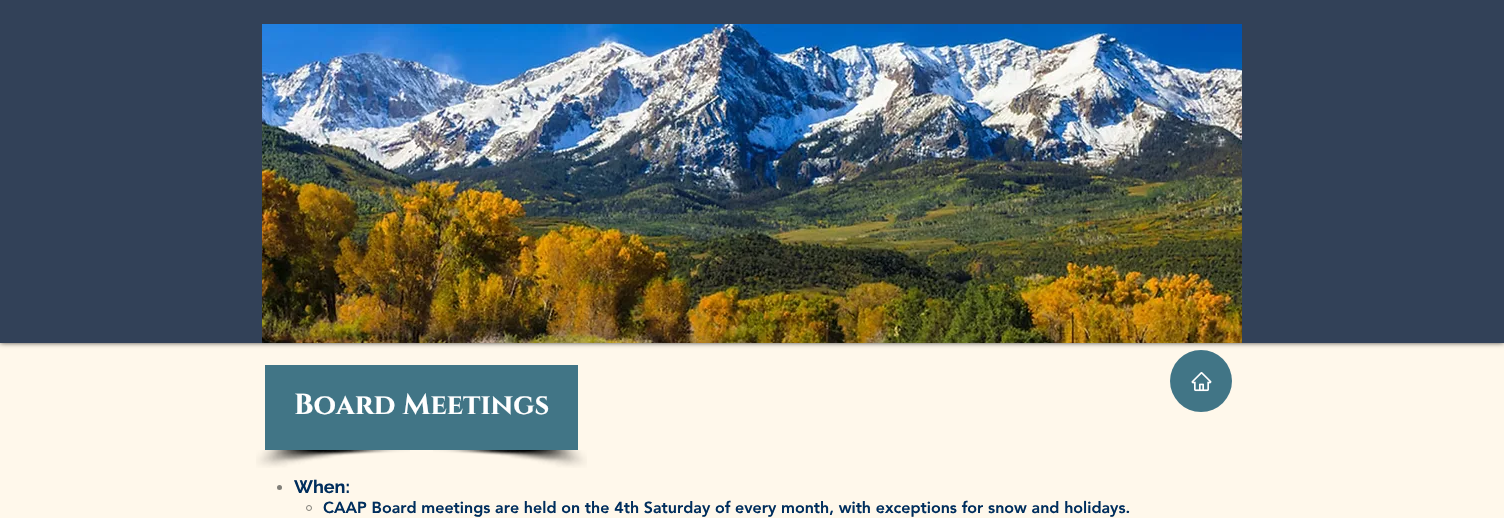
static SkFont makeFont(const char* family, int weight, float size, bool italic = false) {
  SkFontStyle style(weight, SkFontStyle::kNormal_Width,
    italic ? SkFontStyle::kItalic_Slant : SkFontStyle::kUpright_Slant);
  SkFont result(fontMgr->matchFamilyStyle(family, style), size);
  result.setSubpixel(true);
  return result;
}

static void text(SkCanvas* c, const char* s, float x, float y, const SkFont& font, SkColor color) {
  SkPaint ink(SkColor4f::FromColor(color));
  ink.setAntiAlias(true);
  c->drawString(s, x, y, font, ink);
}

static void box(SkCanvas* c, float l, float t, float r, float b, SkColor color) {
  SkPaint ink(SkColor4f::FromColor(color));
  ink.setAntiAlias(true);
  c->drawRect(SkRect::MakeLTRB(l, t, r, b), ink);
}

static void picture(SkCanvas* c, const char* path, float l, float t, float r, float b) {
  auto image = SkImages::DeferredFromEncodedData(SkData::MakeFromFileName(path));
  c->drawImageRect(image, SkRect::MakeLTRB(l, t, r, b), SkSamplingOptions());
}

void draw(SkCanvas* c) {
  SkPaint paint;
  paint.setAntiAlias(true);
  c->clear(0xfffff8eb);
  paint.setColor(0xff417586);
  c->drawCircle(1201, 381, 31, paint);
  paint.setColor(0xb3000000);
  paint.setMaskFilter(SkMaskFilter::MakeBlur(kNormal_SkBlurStyle, 2.5f));
  c->drawRect(SkRect::MakeLTRB(0, 0, 1504, 343), paint);
  paint.setMaskFilter(nullptr);
  box(c, 0, 0, 1504, 343, 0xff324158);
  picture(c, "img_01.png", 262, 24, 1242, 343);
  box(c, 265, 365, 578, 450, 0xff417586);
  SkFont face1 = makeFont("Cinzel", 700, 29);
  text(c, "Board Meetings", 294, 414, face1, 0xffffffff);
  picture(c, "img_02.png", 256, 450, 410, 468);
  picture(c, "img_03.png", 433, 450, 587, 468);
  picture(c, "img_04.png", 1191, 372, 1212, 392);
  paint.setColor(0xff817f78);
  c->drawCircle(279.5f, 487.5f, 2.5f, paint);
  SkFont face2 = makeFont("Raleway", 700, 18);
  text(c, "When:", 294, 493, face2, 0xff002e5d);
  paint.setStyle(SkPaint::kStroke_Style);
  paint.setStrokeWidth(1);
  c->drawCircle(309, 508, 2.5f, paint);
  SkFont face3 = makeFont("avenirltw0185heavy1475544", 900, 16);
  text(c, "CAAP Board meetings are held on the 4th Saturday of every month, with exceptions for snow and holidays.", 323, 513, face3, 0xff002e5d);
}
